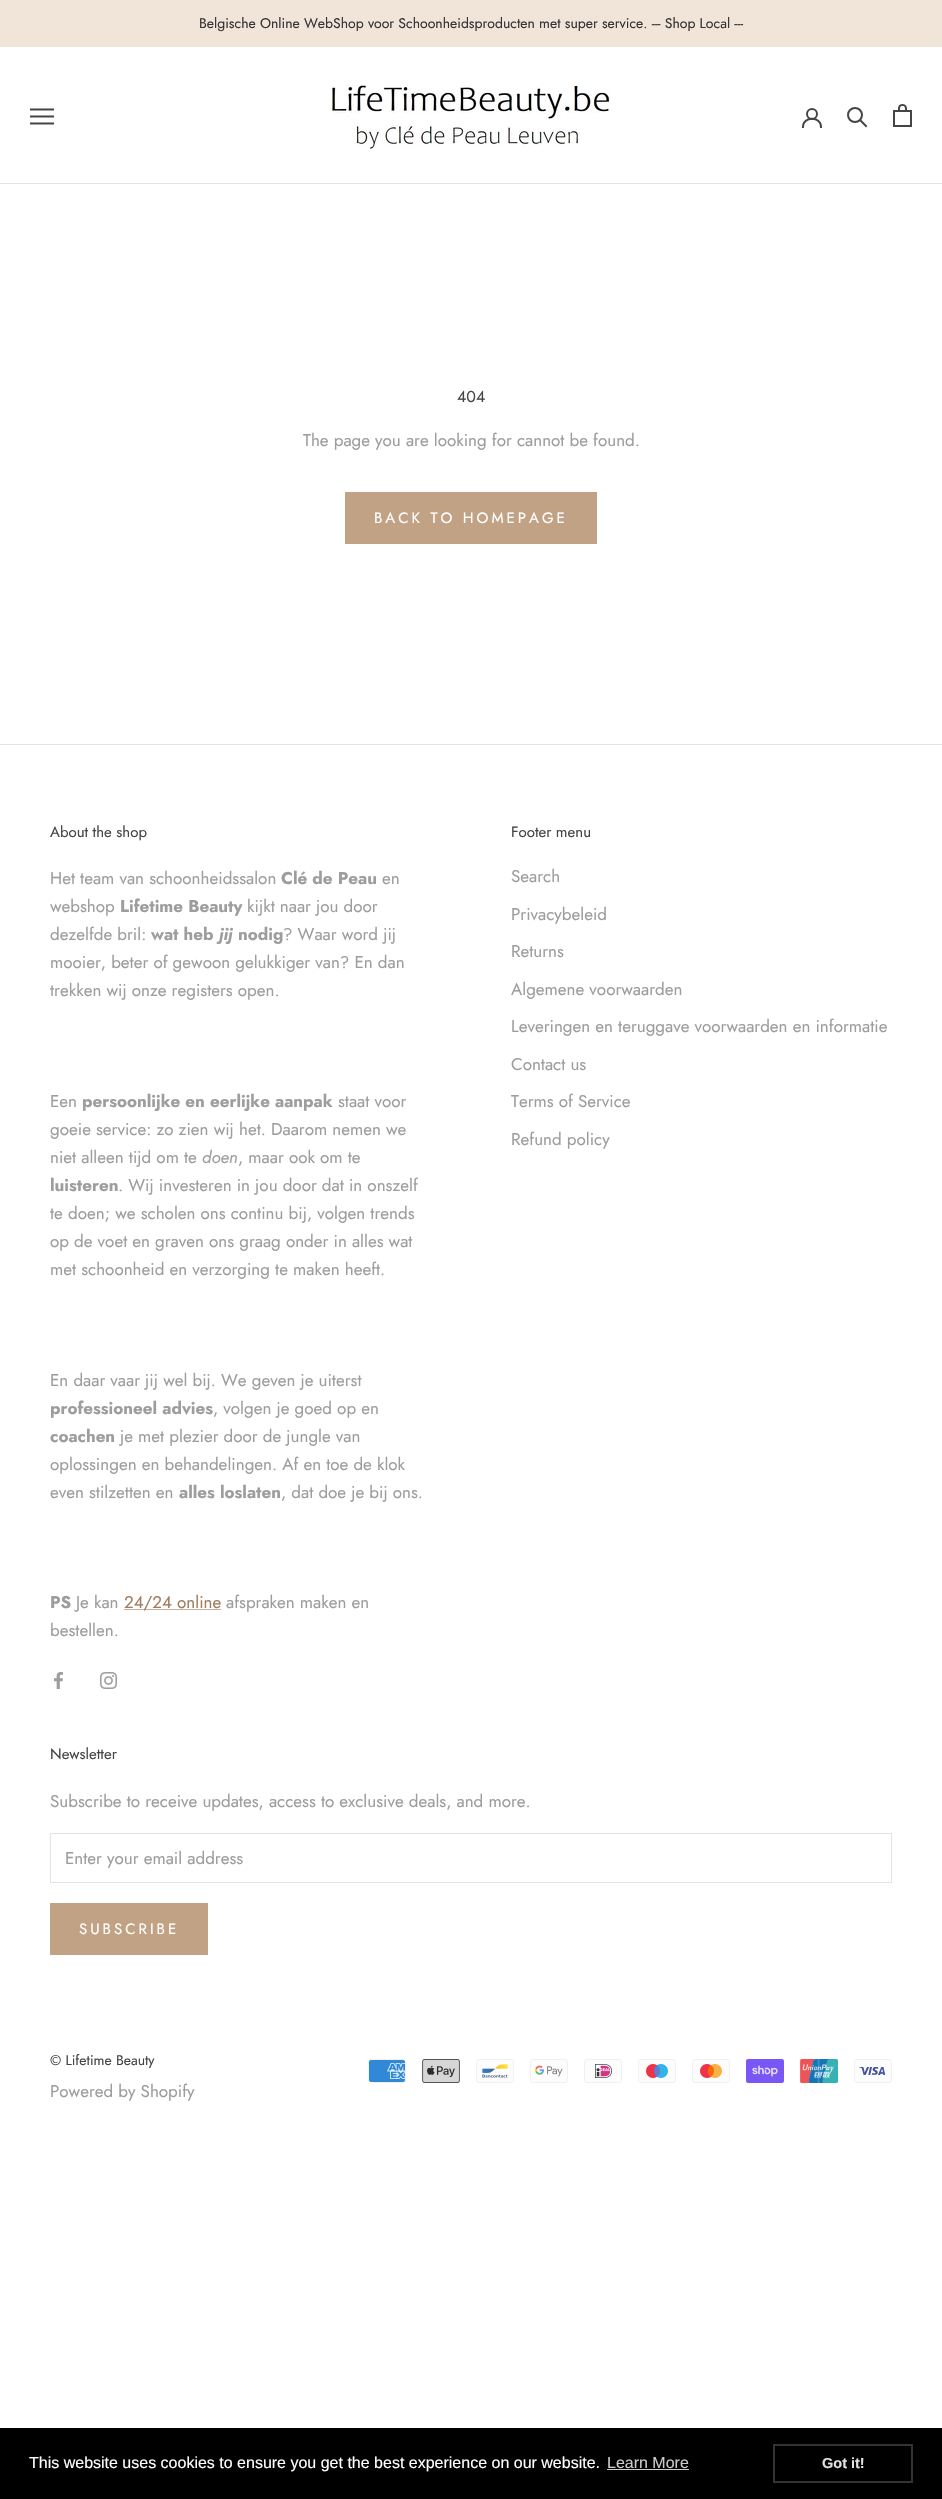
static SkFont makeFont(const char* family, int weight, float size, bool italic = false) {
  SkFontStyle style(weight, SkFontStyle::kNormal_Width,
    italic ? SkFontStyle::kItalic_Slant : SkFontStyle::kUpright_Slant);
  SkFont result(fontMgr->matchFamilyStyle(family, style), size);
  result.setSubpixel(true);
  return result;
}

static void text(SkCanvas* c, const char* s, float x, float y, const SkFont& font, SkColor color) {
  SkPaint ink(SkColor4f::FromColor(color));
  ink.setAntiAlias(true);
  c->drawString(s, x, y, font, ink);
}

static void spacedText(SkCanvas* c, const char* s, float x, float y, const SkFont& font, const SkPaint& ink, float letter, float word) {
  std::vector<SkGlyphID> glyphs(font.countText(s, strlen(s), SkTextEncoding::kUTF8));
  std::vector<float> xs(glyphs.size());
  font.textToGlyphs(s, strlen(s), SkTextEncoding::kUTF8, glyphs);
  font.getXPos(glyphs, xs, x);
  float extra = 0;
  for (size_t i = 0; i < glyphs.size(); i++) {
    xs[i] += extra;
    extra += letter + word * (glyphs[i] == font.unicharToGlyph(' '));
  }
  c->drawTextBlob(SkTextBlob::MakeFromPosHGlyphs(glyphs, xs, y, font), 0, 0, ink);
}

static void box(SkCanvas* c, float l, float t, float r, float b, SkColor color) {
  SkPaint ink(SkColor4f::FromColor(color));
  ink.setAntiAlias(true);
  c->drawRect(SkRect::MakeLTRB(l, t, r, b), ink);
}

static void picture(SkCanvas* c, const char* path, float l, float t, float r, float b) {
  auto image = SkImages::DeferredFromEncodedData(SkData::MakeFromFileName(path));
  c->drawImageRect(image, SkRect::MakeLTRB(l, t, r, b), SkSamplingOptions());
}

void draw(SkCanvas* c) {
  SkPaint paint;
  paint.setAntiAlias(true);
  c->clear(0xffffffff);
  box(c, 0, 0, 942, 47, 0xfff1e4d8);
  SkFont face1 = makeFont("Jost", 400, 14);
  text(c, "Belgische Online WebShop voor Schoonheidsproducten met super service. --- Shop Local ---", 199, 28, face1, 0xff343434);
  box(c, 0, 183, 942, 184, 0xffe3e3e3);
  picture(c, "img_01.png", 30, 108, 54, 125);
  picture(c, "img_02.png", 330, 84, 610, 149);
  paint.setStyle(SkPaint::kStroke_Style);
  paint.setStrokeWidth(2);
  paint.setStrokeCap(SkPaint::kSquare_Cap);
  paint.setColor(0xff454545);
  c->drawPath(SkPathBuilder().moveTo(803, 127).cubicTo(803, 116, 821, 116, 821, 127).detach(), paint);
  paint.setStrokeCap(SkPaint::kButt_Cap);
  c->drawCircle(812, 114, 5, paint);
  paint.setStrokeCap(SkPaint::kSquare_Cap);
  c->drawPath(SkPathBuilder().moveTo(866, 126).lineTo(860.5f, 120.5f).detach(), paint);
  paint.setStrokeCap(SkPaint::kButt_Cap);
  c->drawCircle(855, 115, 7, paint);
  picture(c, "img_03.png", 893, 104, 912, 127);
  SkFont face2 = makeFont("Jost", 400, 16);
  text(c, "404", 457, 402, face2, 0xff454545);
  SkFont face3 = makeFont("Jost", 400, 17);
  text(c, "The page you are looking for cannot be found.", 303, 446, face3, 0xff9d9d9d);
  paint.setStrokeWidth(1);
  paint.setColor(0xffc2a284);
  c->drawRect(SkRect::MakeLTRB(345.5f, 492.5f, 596.5f, 543.5f), paint);
  box(c, 346, 493, 596, 543, 0xffc2a284);
  SkFont face4 = makeFont("Jost", 400, 15);
  paint.setStyle(SkPaint::kFill_Style);
  paint.setColor(0xffffffff);
  spacedText(c, "BACK TO HOMEPAGE", 374, 523, face4, paint, 3, 0);
  box(c, 0, 744, 942, 745, 0xffe3e3e3);
  text(c, "About the shop", 50, 837, face4, 0xff454545);
  text(c, "Het team van schoonheidssalon", 50, 884, face3, 0xff9d9d9d);
  SkFont face5 = makeFont("Jost", 700, 17);
  text(c, "Clé de Peau", 281, 884, face5, 0xff9d9d9d);
  text(c, "en", 382, 884, face3, 0xff9d9d9d);
  text(c, "webshop", 50, 912, face3, 0xff9d9d9d);
  text(c, "Lifetime Beauty", 120, 912, face5, 0xff9d9d9d);
  text(c, "kijkt naar jou door", 247, 912, face3, 0xff9d9d9d);
  text(c, "dezelfde bril:", 50, 940, face3, 0xff9d9d9d);
  text(c, "wat heb", 151, 940, face5, 0xff9d9d9d);
  SkFont face6 = makeFont("Jost", 700, 17, true);
  text(c, "jij", 219, 940, face6, 0xff9d9d9d);
  text(c, "nodig", 238, 940, face5, 0xff9d9d9d);
  text(c, "? Waar word jij", 283, 940, face3, 0xff9d9d9d);
  text(c, "mooier, beter of gewoon gelukkiger van? En dan", 50, 968, face3, 0xff9d9d9d);
  text(c, "trekken wij onze registers open.", 50, 996, face3, 0xff9d9d9d);
  text(c, "Een", 50, 1107, face3, 0xff9d9d9d);
  text(c, "persoonlijke en eerlijke aanpak", 82, 1107, face5, 0xff9d9d9d);
  text(c, "staat voor", 338, 1107, face3, 0xff9d9d9d);
  text(c, "goeie service: zo zien wij het. Daarom nemen we", 50, 1135, face3, 0xff9d9d9d);
  text(c, "niet alleen tijd om te", 50, 1163, face3, 0xff9d9d9d);
  SkFont face7 = makeFont("Jost", 400, 17, true);
  text(c, "doen", 202, 1163, face7, 0xff9d9d9d);
  text(c, ", maar ook om te", 238, 1163, face3, 0xff9d9d9d);
  text(c, "luisteren", 50, 1191, face5, 0xff9d9d9d);
  text(c, ". Wij investeren in jou door dat in onszelf", 118, 1191, face3, 0xff9d9d9d);
  text(c, "te doen; we scholen ons continu bij, volgen trends", 50, 1219, face3, 0xff9d9d9d);
  text(c, "op de voet en graven ons graag onder in alles wat", 50, 1247, face3, 0xff9d9d9d);
  text(c, "met schoonheid en verzorging te maken heeft.", 50, 1275, face3, 0xff9d9d9d);
  text(c, "En daar vaar jij wel bij. We geven je uiterst", 50, 1386, face3, 0xff9d9d9d);
  text(c, "professioneel advies", 50, 1414, face5, 0xff9d9d9d);
  text(c, ", volgen je goed op en", 213, 1414, face3, 0xff9d9d9d);
  text(c, "coachen", 50, 1442, face5, 0xff9d9d9d);
  text(c, "je met plezier door de jungle van", 120, 1442, face3, 0xff9d9d9d);
  text(c, "oplossingen en behandelingen. Af en toe de klok", 50, 1470, face3, 0xff9d9d9d);
  text(c, "even stilzetten en", 50, 1498, face3, 0xff9d9d9d);
  text(c, "alles loslaten", 179, 1498, face5, 0xff9d9d9d);
  text(c, ", dat doe je bij ons.", 281, 1498, face3, 0xff9d9d9d);
  text(c, "PS", 50, 1608, face5, 0xff9d9d9d);
  text(c, "Je kan", 76, 1608, face3, 0xff9d9d9d);
  box(c, 124, 1609, 221, 1610, 0xffc7b09e);
  text(c, "24/24 online", 124, 1608, face3, 0xffa17c5e);
  text(c, "afspraken maken en", 226, 1608, face3, 0xff9d9d9d);
  text(c, "bestellen.", 50, 1636, face3, 0xff9d9d9d);
  picture(c, "img_04.png", 54, 1672, 63, 1689);
  picture(c, "img_05.png", 100, 1672, 117, 1689);
  text(c, "Footer menu", 511, 837, face4, 0xff454545);
  text(c, "Search", 511, 882, face3, 0xff9d9d9d);
  text(c, "Privacybeleid", 511, 920, face3, 0xff9d9d9d);
  text(c, "Returns", 511, 957, face3, 0xff9d9d9d);
  text(c, "Algemene voorwaarden", 511, 995, face3, 0xff9d9d9d);
  text(c, "Leveringen en teruggave voorwaarden en informatie", 511, 1032, face3, 0xff9d9d9d);
  text(c, "Contact us", 511, 1070, face3, 0xff9d9d9d);
  text(c, "Terms of Service", 511, 1107, face3, 0xff9d9d9d);
  text(c, "Refund policy", 511, 1145, face3, 0xff9d9d9d);
  text(c, "Newsletter", 50, 1759, face4, 0xff454545);
  text(c, "Subscribe to receive updates, access to exclusive deals, and more.", 50, 1807, face3, 0xff9d9d9d);
  paint.setStyle(SkPaint::kStroke_Style);
  paint.setColor(0xffe3e3e3);
  c->drawRect(SkRect::MakeLTRB(50.5f, 1833.5f, 891.5f, 1882.5f), paint);
  text(c, "Enter your email address", 65, 1864, face3, 0xff9d9d9d);
  paint.setColor(0xffc2a284);
  c->drawRect(SkRect::MakeLTRB(50.5f, 1903.5f, 207.5f, 1954.5f), paint);
  box(c, 51, 1904, 207, 1954, 0xffc2a284);
  paint.setStyle(SkPaint::kFill_Style);
  paint.setColor(0xffffffff);
  spacedText(c, "SUBSCRIBE", 79, 1934, face4, paint, 3, 0);
  text(c, "© Lifetime Beauty", 50, 2065, face1, 0xff454545);
  text(c, "Powered by Shopify", 50, 2097, face3, 0xff9d9d9d);
  picture(c, "img_06.png", 368, 2059, 406, 2083);
  picture(c, "img_07.png", 422, 2059, 460, 2083);
  picture(c, "img_08.png", 476, 2059, 514, 2083);
  picture(c, "img_09.png", 530, 2059, 568, 2083);
  picture(c, "img_10.png", 584, 2059, 622, 2083);
  picture(c, "img_11.png", 638, 2059, 676, 2083);
  picture(c, "img_12.png", 692, 2059, 730, 2083);
  picture(c, "img_13.png", 746, 2059, 784, 2083);
  picture(c, "img_14.png", 800, 2059, 838, 2083);
  picture(c, "img_15.png", 854, 2059, 892, 2083);
  box(c, 0, 2428, 942, 2499, 0xff000000);
  SkFont face8 = makeFont("Liberation Sans", 400, 16);
  text(c, "This website uses cookies to ensure you get the best experience on our website.", 29, 2468, face8, 0xffffffff);
  text(c, "Learn More", 607, 2468, face8, 0xffcccccc);
  box(c, 607, 2469, 689, 2470, 0xffcccccc);
  paint.setStyle(SkPaint::kStroke_Style);
  paint.setStrokeWidth(2);
  paint.setColor(0xff333333);
  c->drawRect(SkRect::MakeLTRB(774, 2445, 912, 2482), paint);
  SkFont face9 = makeFont("Liberation Sans", 700, 14.5f);
  text(c, "Got it!", 822, 2468, face9, 0xffe0e0e0);
}
